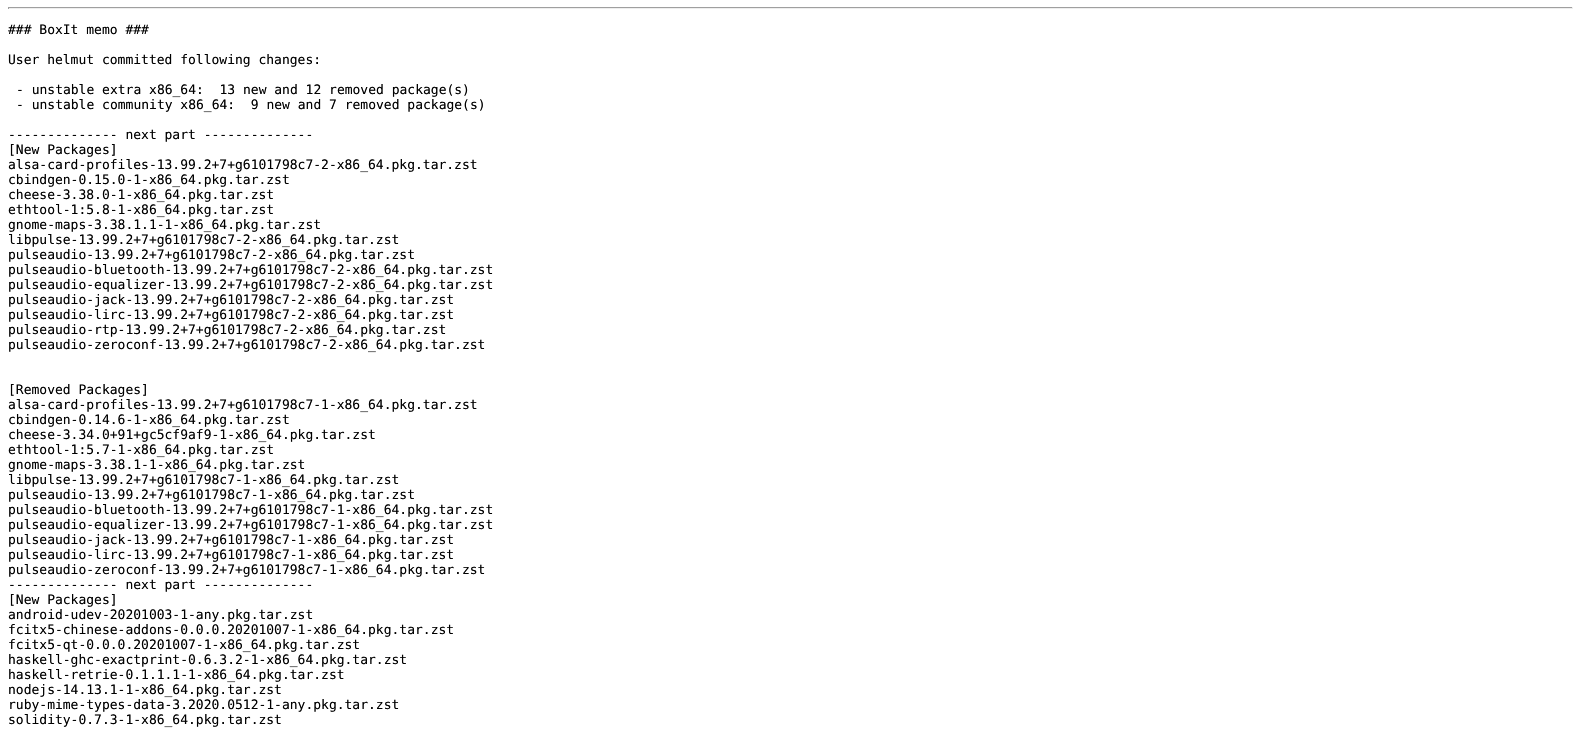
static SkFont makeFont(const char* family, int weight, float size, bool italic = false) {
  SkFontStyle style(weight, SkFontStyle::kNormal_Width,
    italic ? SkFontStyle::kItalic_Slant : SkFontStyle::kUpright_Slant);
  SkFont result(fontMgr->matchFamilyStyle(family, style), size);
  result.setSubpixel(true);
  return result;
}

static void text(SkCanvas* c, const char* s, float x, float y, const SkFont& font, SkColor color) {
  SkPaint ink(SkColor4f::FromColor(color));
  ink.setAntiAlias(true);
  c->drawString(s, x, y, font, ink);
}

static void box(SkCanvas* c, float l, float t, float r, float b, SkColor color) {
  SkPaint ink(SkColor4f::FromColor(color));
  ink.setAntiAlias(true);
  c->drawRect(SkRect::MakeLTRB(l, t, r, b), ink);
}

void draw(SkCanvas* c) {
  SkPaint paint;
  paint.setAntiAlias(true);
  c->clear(0xffffffff);
  box(c, 8, 7, 1573, 8, 0xff9f9f9f);
  box(c, 1572, 7, 1573, 9, 0xffeeeeee);
  box(c, 8, 8, 1573, 9, 0xffeeeeee);
  box(c, 8, 7, 9, 9, 0xff9f9f9f);
  SkFont face1 = makeFont("DejaVu Sans Mono", 400, 13);
  text(c, "### BoxIt memo ###", 8, 34, face1, 0xff000000);
  text(c, "User helmut committed following changes:", 8, 64, face1, 0xff000000);
  text(c, "- unstable extra x86_64:  13 new and 12 removed package(s)", 16, 94, face1, 0xff000000);
  text(c, "- unstable community x86_64:  9 new and 7 removed package(s)", 16, 109, face1, 0xff000000);
  text(c, "-------------- next part --------------", 8, 139, face1, 0xff000000);
  text(c, "[New Packages]", 8, 154, face1, 0xff000000);
  text(c, "alsa-card-profiles-13.99.2+7+g6101798c7-2-x86_64.pkg.tar.zst", 8, 169, face1, 0xff000000);
  text(c, "cbindgen-0.15.0-1-x86_64.pkg.tar.zst", 8, 184, face1, 0xff000000);
  text(c, "cheese-3.38.0-1-x86_64.pkg.tar.zst", 8, 199, face1, 0xff000000);
  text(c, "ethtool-1:5.8-1-x86_64.pkg.tar.zst", 8, 214, face1, 0xff000000);
  text(c, "gnome-maps-3.38.1.1-1-x86_64.pkg.tar.zst", 8, 229, face1, 0xff000000);
  text(c, "libpulse-13.99.2+7+g6101798c7-2-x86_64.pkg.tar.zst", 8, 244, face1, 0xff000000);
  text(c, "pulseaudio-13.99.2+7+g6101798c7-2-x86_64.pkg.tar.zst", 8, 259, face1, 0xff000000);
  text(c, "pulseaudio-bluetooth-13.99.2+7+g6101798c7-2-x86_64.pkg.tar.zst", 8, 274, face1, 0xff000000);
  text(c, "pulseaudio-equalizer-13.99.2+7+g6101798c7-2-x86_64.pkg.tar.zst", 8, 289, face1, 0xff000000);
  text(c, "pulseaudio-jack-13.99.2+7+g6101798c7-2-x86_64.pkg.tar.zst", 8, 304, face1, 0xff000000);
  text(c, "pulseaudio-lirc-13.99.2+7+g6101798c7-2-x86_64.pkg.tar.zst", 8, 319, face1, 0xff000000);
  text(c, "pulseaudio-rtp-13.99.2+7+g6101798c7-2-x86_64.pkg.tar.zst", 8, 334, face1, 0xff000000);
  text(c, "pulseaudio-zeroconf-13.99.2+7+g6101798c7-2-x86_64.pkg.tar.zst", 8, 349, face1, 0xff000000);
  text(c, "[Removed Packages]", 8, 394, face1, 0xff000000);
  text(c, "alsa-card-profiles-13.99.2+7+g6101798c7-1-x86_64.pkg.tar.zst", 8, 409, face1, 0xff000000);
  text(c, "cbindgen-0.14.6-1-x86_64.pkg.tar.zst", 8, 424, face1, 0xff000000);
  text(c, "cheese-3.34.0+91+gc5cf9af9-1-x86_64.pkg.tar.zst", 8, 439, face1, 0xff000000);
  text(c, "ethtool-1:5.7-1-x86_64.pkg.tar.zst", 8, 454, face1, 0xff000000);
  text(c, "gnome-maps-3.38.1-1-x86_64.pkg.tar.zst", 8, 469, face1, 0xff000000);
  text(c, "libpulse-13.99.2+7+g6101798c7-1-x86_64.pkg.tar.zst", 8, 484, face1, 0xff000000);
  text(c, "pulseaudio-13.99.2+7+g6101798c7-1-x86_64.pkg.tar.zst", 8, 499, face1, 0xff000000);
  text(c, "pulseaudio-bluetooth-13.99.2+7+g6101798c7-1-x86_64.pkg.tar.zst", 8, 514, face1, 0xff000000);
  text(c, "pulseaudio-equalizer-13.99.2+7+g6101798c7-1-x86_64.pkg.tar.zst", 8, 529, face1, 0xff000000);
  text(c, "pulseaudio-jack-13.99.2+7+g6101798c7-1-x86_64.pkg.tar.zst", 8, 544, face1, 0xff000000);
  text(c, "pulseaudio-lirc-13.99.2+7+g6101798c7-1-x86_64.pkg.tar.zst", 8, 559, face1, 0xff000000);
  text(c, "pulseaudio-zeroconf-13.99.2+7+g6101798c7-1-x86_64.pkg.tar.zst", 8, 574, face1, 0xff000000);
  text(c, "-------------- next part --------------", 8, 589, face1, 0xff000000);
  text(c, "[New Packages]", 8, 604, face1, 0xff000000);
  text(c, "android-udev-20201003-1-any.pkg.tar.zst", 8, 619, face1, 0xff000000);
  text(c, "fcitx5-chinese-addons-0.0.0.20201007-1-x86_64.pkg.tar.zst", 8, 634, face1, 0xff000000);
  text(c, "fcitx5-qt-0.0.0.20201007-1-x86_64.pkg.tar.zst", 8, 649, face1, 0xff000000);
  text(c, "haskell-ghc-exactprint-0.6.3.2-1-x86_64.pkg.tar.zst", 8, 664, face1, 0xff000000);
  text(c, "haskell-retrie-0.1.1.1-1-x86_64.pkg.tar.zst", 8, 679, face1, 0xff000000);
  text(c, "nodejs-14.13.1-1-x86_64.pkg.tar.zst", 8, 694, face1, 0xff000000);
  text(c, "ruby-mime-types-data-3.2020.0512-1-any.pkg.tar.zst", 8, 709, face1, 0xff000000);
  text(c, "solidity-0.7.3-1-x86_64.pkg.tar.zst", 8, 724, face1, 0xff000000);
}
